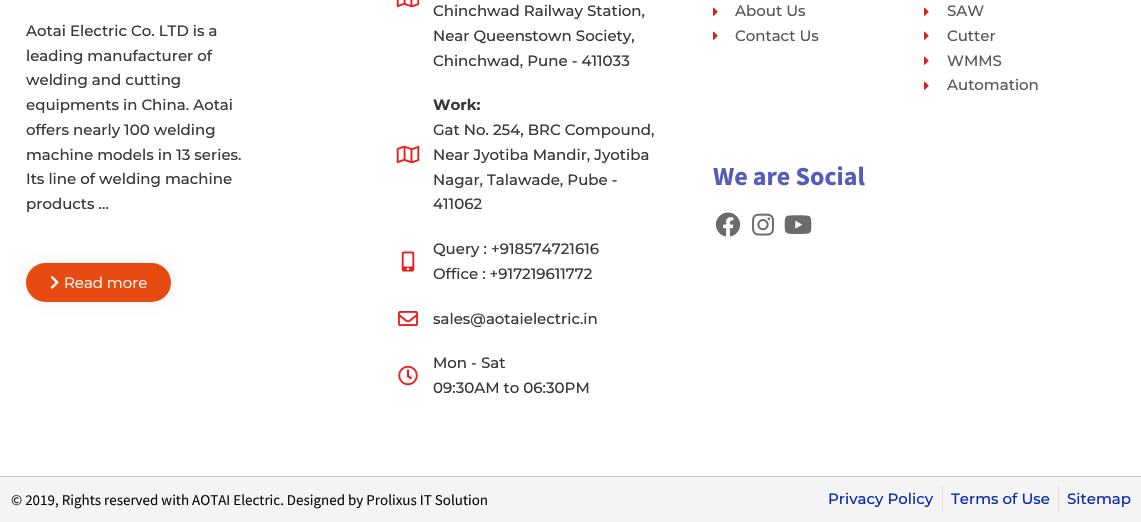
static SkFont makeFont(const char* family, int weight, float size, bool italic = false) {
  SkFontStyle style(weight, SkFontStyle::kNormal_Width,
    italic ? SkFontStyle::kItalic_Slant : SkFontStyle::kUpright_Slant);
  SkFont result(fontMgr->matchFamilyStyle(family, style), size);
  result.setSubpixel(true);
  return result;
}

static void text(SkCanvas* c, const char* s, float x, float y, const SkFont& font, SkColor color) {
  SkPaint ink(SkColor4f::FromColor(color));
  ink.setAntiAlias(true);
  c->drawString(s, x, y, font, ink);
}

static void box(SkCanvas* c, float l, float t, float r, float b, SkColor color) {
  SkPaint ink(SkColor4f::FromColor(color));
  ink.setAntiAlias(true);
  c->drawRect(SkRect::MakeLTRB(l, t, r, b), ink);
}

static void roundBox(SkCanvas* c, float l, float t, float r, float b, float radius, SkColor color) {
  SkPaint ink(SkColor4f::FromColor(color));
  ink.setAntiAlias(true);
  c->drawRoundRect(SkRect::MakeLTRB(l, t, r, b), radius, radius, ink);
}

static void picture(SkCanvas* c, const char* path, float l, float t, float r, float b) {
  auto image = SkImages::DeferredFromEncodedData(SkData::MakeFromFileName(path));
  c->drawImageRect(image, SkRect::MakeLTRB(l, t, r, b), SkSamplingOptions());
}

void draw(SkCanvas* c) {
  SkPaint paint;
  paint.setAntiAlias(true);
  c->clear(0xffffffff);
  SkFont face1 = makeFont("Montserrat", 500, 15);
  text(c, "Aotai Electric Co. LTD is a", 26, 36, face1, 0xff383838);
  text(c, "leading manufacturer of", 26, 61, face1, 0xff383838);
  text(c, "welding and cutting", 26, 85, face1, 0xff383838);
  text(c, "equipments in China. Aotai", 26, 110, face1, 0xff383838);
  text(c, "offers nearly 100 welding", 26, 135, face1, 0xff383838);
  text(c, "machine models in 13 series.", 26, 160, face1, 0xff383838);
  text(c, "Its line of welding machine", 26, 184, face1, 0xff383838);
  text(c, "products …", 26, 209, face1, 0xff383838);
  paint.setColor(0x80e2e2e2);
  paint.setMaskFilter(SkMaskFilter::MakeBlur(kNormal_SkBlurStyle, 10));
  c->drawRoundRect(SkRect::MakeLTRB(26, 263, 171, 302), 19.5f, 19.5f, paint);
  paint.setMaskFilter(nullptr);
  roundBox(c, 26, 263, 171, 302, 19.5f, 0xffe84b12);
  picture(c, "img_01.png", 50, 276, 59, 289);
  SkFont face2 = makeFont("Montserrat", 400, 15);
  text(c, "Read more", 64, 288, face2, 0xffffffff);
  picture(c, "img_02.png", 396, 0, 420, 8);
  text(c, "Chinchwad Railway Station,", 433, 16, face1, 0xff383838);
  text(c, "Near Queenstown Society,", 433, 41, face1, 0xff383838);
  text(c, "Chinchwad, Pune - 411033", 433, 66, face1, 0xff383838);
  picture(c, "img_03.png", 396, 145, 420, 164);
  SkFont face3 = makeFont("Montserrat", 700, 15);
  text(c, "Work:", 433, 110, face3, 0xff383838);
  text(c, "Gat No. 254, BRC Compound,", 433, 135, face1, 0xff383838);
  text(c, "Near Jyotiba Mandir, Jyotiba", 433, 160, face1, 0xff383838);
  text(c, "Nagar, Talawade, Pube -", 433, 185, face1, 0xff383838);
  text(c, "411062", 433, 209, face1, 0xff383838);
  picture(c, "img_04.png", 401, 251, 415, 272);
  text(c, "Query : +918574721616", 433, 254, face1, 0xff383838);
  text(c, "Office : +917219611772", 433, 279, face1, 0xff383838);
  picture(c, "img_05.png", 398, 311, 418, 326);
  text(c, "sales@aotaielectric.in", 433, 324, face1, 0xff383838);
  picture(c, "img_06.png", 398, 365, 418, 386);
  text(c, "Mon - Sat", 433, 368, face1, 0xff383838);
  text(c, "09:30AM to 06:30PM", 433, 393, face1, 0xff383838);
  picture(c, "img_07.png", 713, 7, 718, 16);
  text(c, "About Us", 735, 16, face1, 0xff54595f);
  picture(c, "img_07.png", 713, 31, 718, 40);
  text(c, "Contact Us", 735, 41, face1, 0xff54595f);
  picture(c, "img_07.png", 924, 7, 929, 16);
  text(c, "SAW", 947, 16, face1, 0xff54595f);
  picture(c, "img_07.png", 924, 31, 929, 40);
  text(c, "Cutter", 947, 41, face1, 0xff54595f);
  picture(c, "img_07.png", 924, 56, 929, 65);
  text(c, "WMMS", 947, 66, face1, 0xff54595f);
  picture(c, "img_07.png", 924, 81, 929, 90);
  text(c, "Automation", 947, 90, face1, 0xff54595f);
  SkFont face4 = makeFont("Source Sans Pro", 700, 26);
  text(c, "We are Social", 713, 185, face4, 0xff545dbc);
  picture(c, "img_08.png", 715, 212, 741, 237);
  picture(c, "img_09.png", 752, 213, 774, 236);
  picture(c, "img_10.png", 784, 215, 812, 234);
  box(c, 0, 477, 1141, 522, 0xfff4f4f4);
  box(c, 0, 476, 1141, 477, 0xffc6c6c6);
  SkFont face5 = makeFont("Source Sans Pro", 400, 15);
  text(c, "© 2019, Rights reserved with AOTAI Electric. Designed by Prolixus IT Solution", 11, 505, face5, 0xff0c0c0c);
  text(c, "Privacy Policy", 828, 504, face1, 0xff0a29b2);
  box(c, 942, 487, 943, 512, 0xffdddddd);
  text(c, "Terms of Use", 951, 504, face1, 0xff0a29b2);
  box(c, 1058, 487, 1059, 512, 0xffdddddd);
  text(c, "Sitemap", 1067, 504, face1, 0xff0a29b2);
}
